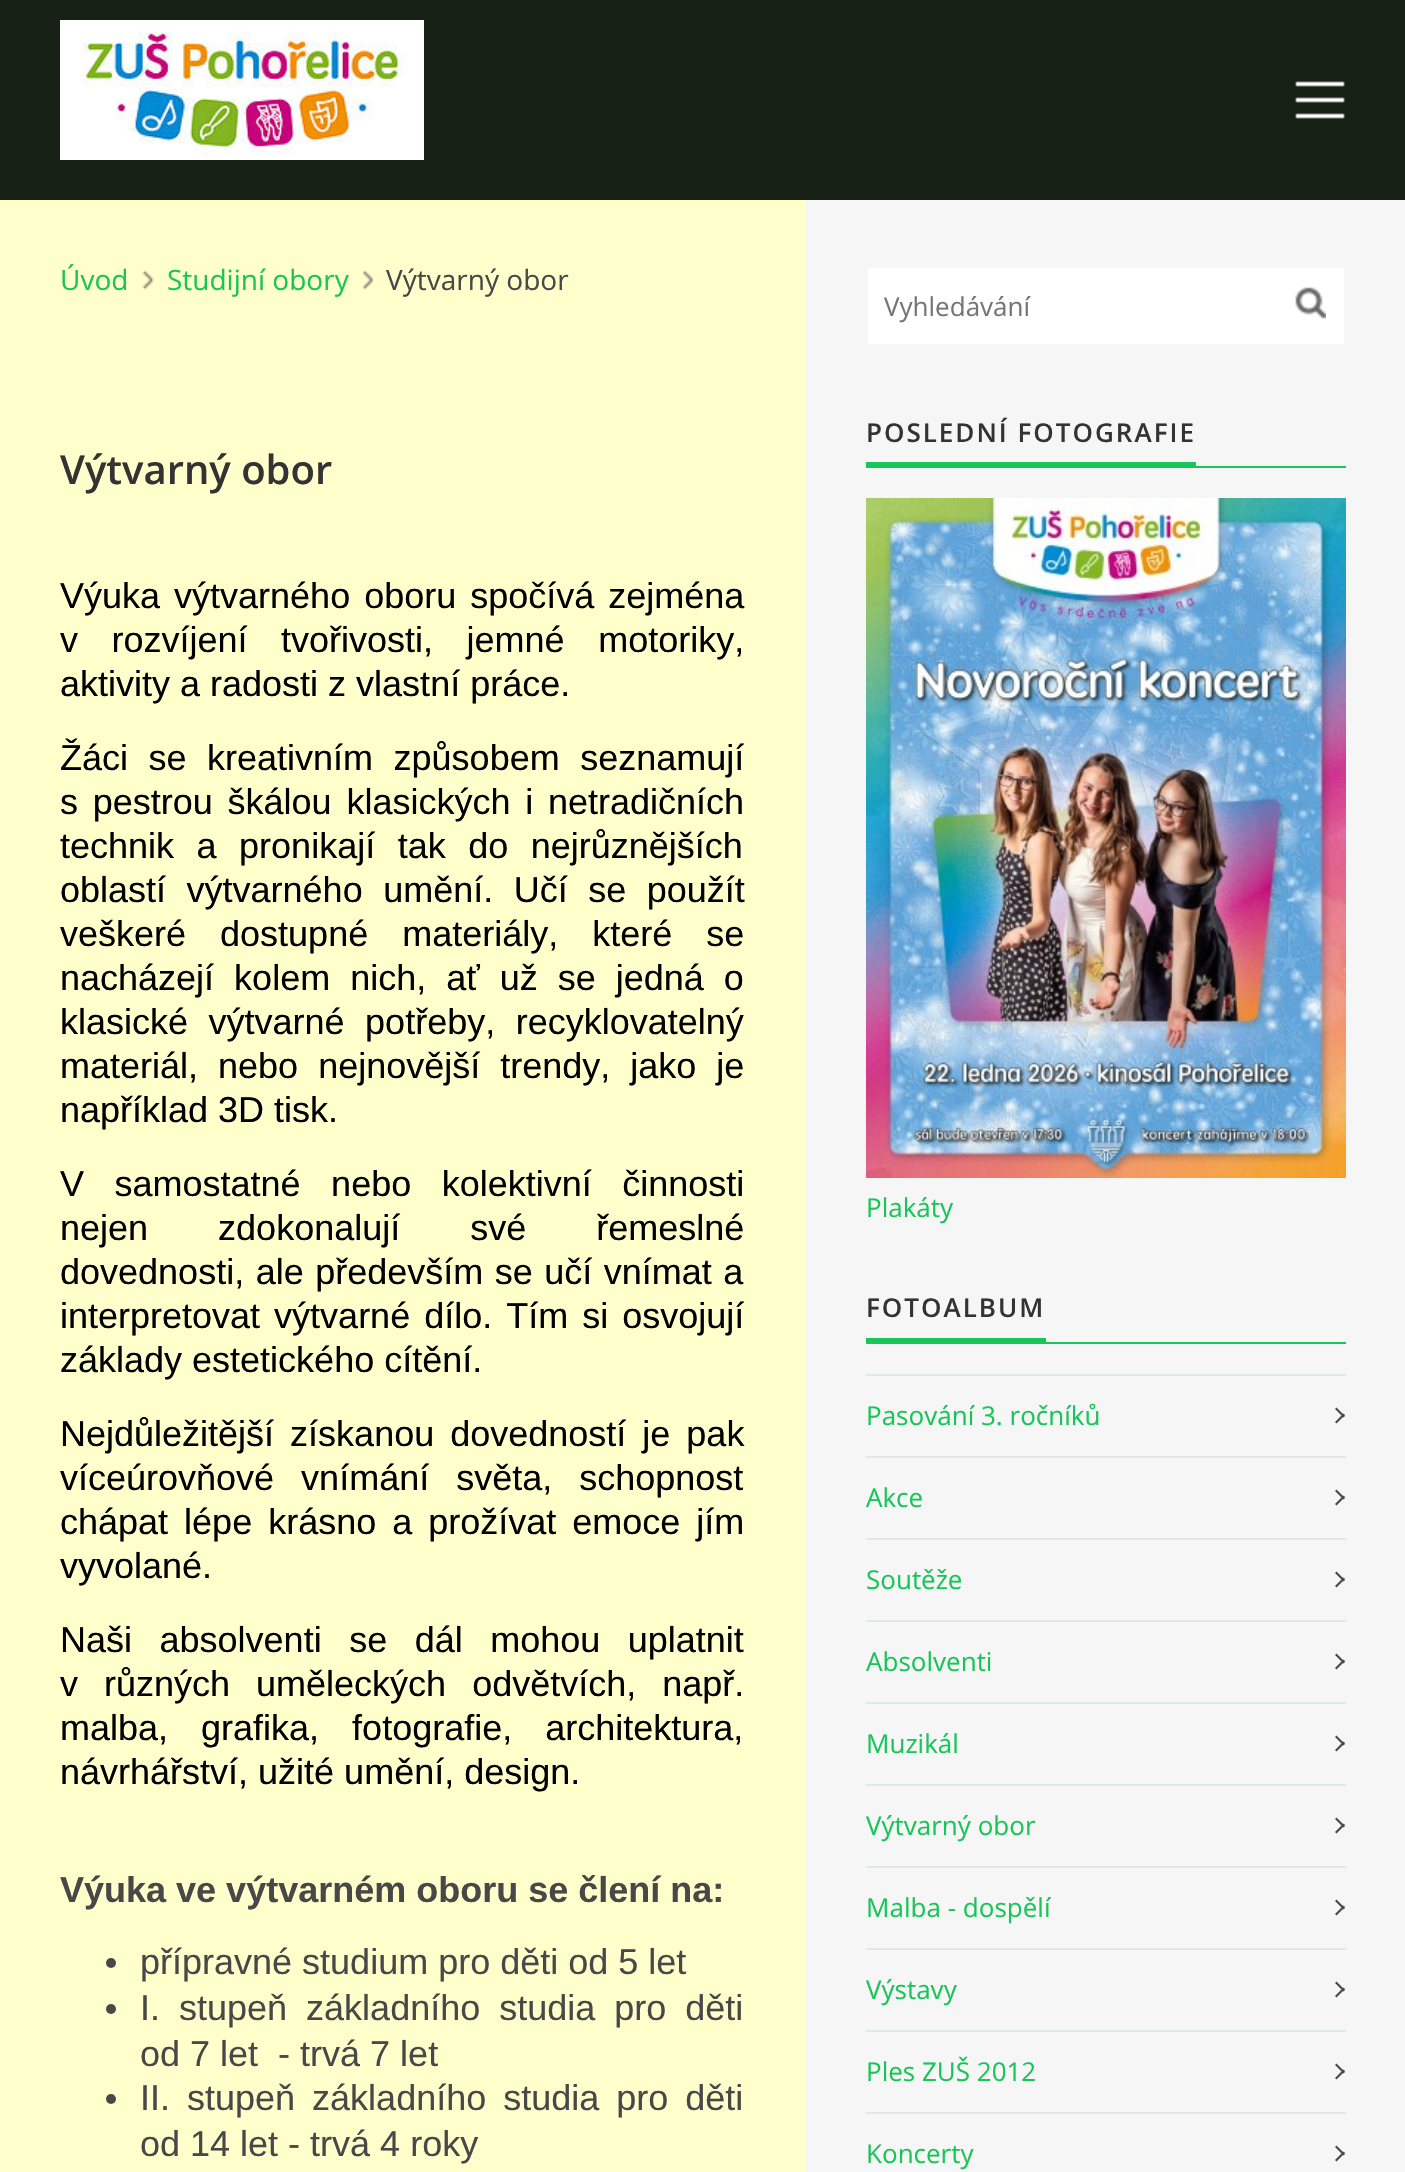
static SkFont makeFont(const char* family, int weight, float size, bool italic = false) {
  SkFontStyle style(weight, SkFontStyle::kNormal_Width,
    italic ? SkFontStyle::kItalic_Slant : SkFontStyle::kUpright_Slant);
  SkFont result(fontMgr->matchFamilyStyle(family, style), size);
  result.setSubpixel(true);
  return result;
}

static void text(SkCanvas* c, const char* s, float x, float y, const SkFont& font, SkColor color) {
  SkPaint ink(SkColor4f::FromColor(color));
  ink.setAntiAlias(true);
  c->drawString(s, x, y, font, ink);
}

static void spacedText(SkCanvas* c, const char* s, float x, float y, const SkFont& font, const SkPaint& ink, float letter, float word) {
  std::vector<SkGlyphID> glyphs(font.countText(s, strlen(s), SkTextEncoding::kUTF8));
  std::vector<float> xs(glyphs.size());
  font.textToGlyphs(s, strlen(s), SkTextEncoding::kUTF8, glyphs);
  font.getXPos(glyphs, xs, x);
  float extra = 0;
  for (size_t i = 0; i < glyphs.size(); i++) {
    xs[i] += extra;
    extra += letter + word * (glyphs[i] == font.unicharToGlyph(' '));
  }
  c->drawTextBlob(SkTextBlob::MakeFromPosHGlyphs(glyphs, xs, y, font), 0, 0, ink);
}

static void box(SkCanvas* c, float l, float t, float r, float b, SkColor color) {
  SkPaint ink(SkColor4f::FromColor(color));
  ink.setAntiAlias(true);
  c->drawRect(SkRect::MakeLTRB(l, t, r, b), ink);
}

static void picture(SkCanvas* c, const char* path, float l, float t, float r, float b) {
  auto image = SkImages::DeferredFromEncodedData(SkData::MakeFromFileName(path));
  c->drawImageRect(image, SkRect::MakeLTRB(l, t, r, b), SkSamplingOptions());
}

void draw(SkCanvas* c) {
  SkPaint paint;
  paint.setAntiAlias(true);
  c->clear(0xff182115);
  picture(c, "img_01.png", 60, 20, 424, 160);
  picture(c, "img_02.png", 1295, 81, 1345, 119);
  box(c, 0, 200, 806, 2172, 0xffffffcc);
  picture(c, "img_03.png", 142, 270, 154, 290);
  SkFont face1 = makeFont("Open Sans", 400, 28);
  text(c, "Úvod", 60, 290, face1, 0xff19c559);
  picture(c, "img_03.png", 362, 270, 374, 290);
  text(c, "Studijní obory", 167, 290, face1, 0xff19c559);
  text(c, "Výtvarný obor", 386, 290, face1, 0xff484848);
  SkFont face2 = makeFont("Open Sans", 600, 40);
  text(c, "Výtvarný obor", 60, 484, face2, 0xff333333);
  SkFont face3 = makeFont("Liberation Sans", 400, 36);
  paint.setColor(0xff000000);
  spacedText(c, "Výuka výtvarného oboru spočívá zejména", 60, 608, face3, paint, 0, 4);
  spacedText(c, "v rozvíjení tvořivosti, jemné motoriky,", 60, 652, face3, paint, 0, 23.5f);
  text(c, "aktivity a radosti z vlastní práce.", 60, 696, face3, 0xff000000);
  spacedText(c, "Žáci se kreativním způsobem seznamují", 60, 770, face3, paint, 0, 10.5f);
  spacedText(c, "s pestrou škálou klasických i netradičních", 60, 814, face3, paint, 0, 4.75f);
  spacedText(c, "technik a pronikají tak do nejrůznějších", 60, 858, face3, paint, 0, 12.5f);
  spacedText(c, "oblastí výtvarného umění. Učí se použít", 60, 902, face3, paint, 0, 10.5f);
  spacedText(c, "veškeré dostupné materiály, které se", 60, 946, face3, paint, 0, 24);
  spacedText(c, "nacházejí kolem nich, ať už se jedná o", 60, 990, face3, paint, 0, 10);
  spacedText(c, "klasické výtvarné potřeby, recyklovatelný", 60, 1034, face3, paint, 0, 10.5f);
  spacedText(c, "materiál, nebo nejnovější trendy, jako je", 60, 1078, face3, paint, 0, 10);
  text(c, "například 3D tisk.", 60, 1122, face3, 0xff000000);
  spacedText(c, "V samostatné nebo kolektivní činnosti", 60, 1196, face3, paint, 0, 20.5f);
  spacedText(c, "nejen zdokonalují své řemeslné", 60, 1240, face3, paint, 0, 60);
  spacedText(c, "dovednosti, ale především se učí vnímat a", 60, 1284, face3, paint, 0, 1.5f);
  spacedText(c, "interpretovat výtvarné dílo. Tím si osvojují", 60, 1328, face3, paint, 0, 4);
  text(c, "základy estetického cítění.", 60, 1372, face3, 0xff000000);
  spacedText(c, "Nejdůležitější získanou dovedností je pak", 60, 1446, face3, paint, 0, 6);
  spacedText(c, "víceúrovňové vnímání světa, schopnost", 60, 1490, face3, paint, 0, 17);
  spacedText(c, "chápat lépe krásno a prožívat emoce jím", 60, 1534, face3, paint, 0, 6);
  text(c, "vyvolané.", 60, 1578, face3, 0xff000000);
  spacedText(c, "Naši absolventi se dál mohou uplatnit", 60, 1652, face3, paint, 0, 17.5f);
  spacedText(c, "v různých uměleckých odvětvích, např.", 60, 1696, face3, paint, 0, 16);
  spacedText(c, "malba, grafika, fotografie, architektura,", 60, 1740, face3, paint, 0, 23);
  text(c, "návrhářství, užité umění, design.", 60, 1784, face3, 0xff000000);
  SkFont face4 = makeFont("Liberation Sans", 700, 36);
  text(c, "Výuka ve výtvarném oboru se člení na:", 60, 1902, face4, 0xff484848);
  paint.setColor(0xff484848);
  c->drawCircle(111, 1963, 5, paint);
  text(c, "přípravné studium pro děti od 5 let", 140, 1974, face3, 0xff484848);
  c->drawCircle(111, 2009, 5, paint);
  spacedText(c, "I. stupeň základního studia pro děti", 140, 2020, face3, paint, 0, 9);
  text(c, "od 7 let  - trvá 7 let", 140, 2066, face3, 0xff484848);
  c->drawCircle(111, 2099, 5, paint);
  spacedText(c, "II. stupeň základního studia pro děti", 140, 2110, face3, paint, 0, 7);
  text(c, "od 14 let - trvá 4 roky", 140, 2156, face3, 0xff484848);
  box(c, 806, 200, 1405, 2172, 0xfff6f6f6);
  box(c, 868, 268, 1344, 344, 0xffffffff);
  SkFont face5 = makeFont("Open Sans", 400, 26);
  text(c, "Vyhledávání", 884, 316, face5, 0xff757575);
  picture(c, "img_04.png", 1295, 287, 1326, 319);
  SkFont face6 = makeFont("Open Sans", 600, 26);
  paint.setColor(0xff333333);
  spacedText(c, "POSLEDNÍ FOTOGRAFIE", 866, 442, face6, paint, 2, 0);
  box(c, 866, 462, 1196, 466, 0xff19c559);
  box(c, 866, 466, 1346, 468, 0xff19c559);
  picture(c, "img_05.png", 866, 498, 1346, 1178);
  text(c, "Plakáty", 866, 1217, face5, 0xff19c559);
  spacedText(c, "FOTOALBUM", 866, 1317, face6, paint, 2, 0);
  box(c, 866, 1338, 1046, 1342, 0xff19c559);
  box(c, 866, 1342, 1346, 1344, 0xff19c559);
  box(c, 866, 1374, 1346, 1376, 0xffdfe8e2);
  box(c, 866, 1456, 1346, 1458, 0xffdfe8e2);
  text(c, "Pasování 3. ročníků", 866, 1425, face5, 0xff19c559);
  paint.setColor(0xff484848);
  c->drawPath(SkPathBuilder().moveTo(1336.5f, 1407.5f).lineTo(1345, 1416).lineTo(1343.5f, 1417.5f).lineTo(1335, 1409).close().detach(), paint);
  c->drawPath(SkPathBuilder().moveTo(1335, 1422).lineTo(1343.5f, 1413.5f).lineTo(1345, 1415).lineTo(1336.5f, 1423.5f).close().detach(), paint);
  box(c, 866, 1538, 1346, 1540, 0xffdfe8e2);
  text(c, "Akce", 866, 1507, face5, 0xff19c559);
  c->drawPath(SkPathBuilder().moveTo(1336.5f, 1489.5f).lineTo(1345, 1498).lineTo(1343.5f, 1499.5f).lineTo(1335, 1491).close().detach(), paint);
  c->drawPath(SkPathBuilder().moveTo(1335, 1504).lineTo(1343.5f, 1495.5f).lineTo(1345, 1497).lineTo(1336.5f, 1505.5f).close().detach(), paint);
  box(c, 866, 1620, 1346, 1622, 0xffdfe8e2);
  text(c, "Soutěže", 866, 1589, face5, 0xff19c559);
  c->drawPath(SkPathBuilder().moveTo(1336.5f, 1571.5f).lineTo(1345, 1580).lineTo(1343.5f, 1581.5f).lineTo(1335, 1573).close().detach(), paint);
  c->drawPath(SkPathBuilder().moveTo(1335, 1586).lineTo(1343.5f, 1577.5f).lineTo(1345, 1579).lineTo(1336.5f, 1587.5f).close().detach(), paint);
  box(c, 866, 1702, 1346, 1704, 0xffdfe8e2);
  text(c, "Absolventi", 866, 1671, face5, 0xff19c559);
  c->drawPath(SkPathBuilder().moveTo(1336.5f, 1653.5f).lineTo(1345, 1662).lineTo(1343.5f, 1663.5f).lineTo(1335, 1655).close().detach(), paint);
  c->drawPath(SkPathBuilder().moveTo(1335, 1668).lineTo(1343.5f, 1659.5f).lineTo(1345, 1661).lineTo(1336.5f, 1669.5f).close().detach(), paint);
  box(c, 866, 1784, 1346, 1786, 0xffdfe8e2);
  text(c, "Muzikál", 866, 1753, face5, 0xff19c559);
  c->drawPath(SkPathBuilder().moveTo(1336.5f, 1735.5f).lineTo(1345, 1744).lineTo(1343.5f, 1745.5f).lineTo(1335, 1737).close().detach(), paint);
  c->drawPath(SkPathBuilder().moveTo(1335, 1750).lineTo(1343.5f, 1741.5f).lineTo(1345, 1743).lineTo(1336.5f, 1751.5f).close().detach(), paint);
  box(c, 866, 1866, 1346, 1868, 0xffdfe8e2);
  text(c, "Výtvarný obor", 866, 1835, face5, 0xff19c559);
  c->drawPath(SkPathBuilder().moveTo(1336.5f, 1817.5f).lineTo(1345, 1826).lineTo(1343.5f, 1827.5f).lineTo(1335, 1819).close().detach(), paint);
  c->drawPath(SkPathBuilder().moveTo(1335, 1832).lineTo(1343.5f, 1823.5f).lineTo(1345, 1825).lineTo(1336.5f, 1833.5f).close().detach(), paint);
  box(c, 866, 1948, 1346, 1950, 0xffdfe8e2);
  text(c, "Malba - dospělí", 866, 1917, face5, 0xff19c559);
  c->drawPath(SkPathBuilder().moveTo(1336.5f, 1899.5f).lineTo(1345, 1908).lineTo(1343.5f, 1909.5f).lineTo(1335, 1901).close().detach(), paint);
  c->drawPath(SkPathBuilder().moveTo(1335, 1914).lineTo(1343.5f, 1905.5f).lineTo(1345, 1907).lineTo(1336.5f, 1915.5f).close().detach(), paint);
  box(c, 866, 2030, 1346, 2032, 0xffdfe8e2);
  text(c, "Výstavy", 866, 1999, face5, 0xff19c559);
  c->drawPath(SkPathBuilder().moveTo(1336.5f, 1981.5f).lineTo(1345, 1990).lineTo(1343.5f, 1991.5f).lineTo(1335, 1983).close().detach(), paint);
  c->drawPath(SkPathBuilder().moveTo(1335, 1996).lineTo(1343.5f, 1987.5f).lineTo(1345, 1989).lineTo(1336.5f, 1997.5f).close().detach(), paint);
  box(c, 866, 2112, 1346, 2114, 0xffdfe8e2);
  text(c, "Ples ZUŠ 2012", 866, 2081, face5, 0xff19c559);
  c->drawPath(SkPathBuilder().moveTo(1336.5f, 2063.5f).lineTo(1345, 2072).lineTo(1343.5f, 2073.5f).lineTo(1335, 2065).close().detach(), paint);
  c->drawPath(SkPathBuilder().moveTo(1335, 2078).lineTo(1343.5f, 2069.5f).lineTo(1345, 2071).lineTo(1336.5f, 2079.5f).close().detach(), paint);
  text(c, "Koncerty", 866, 2163, face5, 0xff19c559);
  c->drawPath(SkPathBuilder().moveTo(1336.5f, 2145.5f).lineTo(1345, 2154).lineTo(1343.5f, 2155.5f).lineTo(1335, 2147).close().detach(), paint);
  c->drawPath(SkPathBuilder().moveTo(1335, 2160).lineTo(1343.5f, 2151.5f).lineTo(1345, 2153).lineTo(1336.5f, 2161.5f).close().detach(), paint);
}
